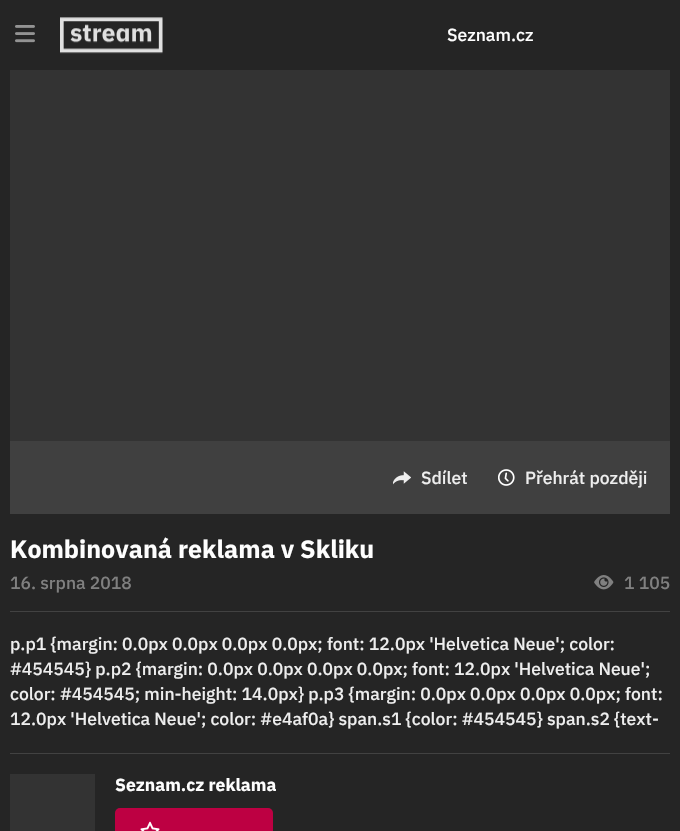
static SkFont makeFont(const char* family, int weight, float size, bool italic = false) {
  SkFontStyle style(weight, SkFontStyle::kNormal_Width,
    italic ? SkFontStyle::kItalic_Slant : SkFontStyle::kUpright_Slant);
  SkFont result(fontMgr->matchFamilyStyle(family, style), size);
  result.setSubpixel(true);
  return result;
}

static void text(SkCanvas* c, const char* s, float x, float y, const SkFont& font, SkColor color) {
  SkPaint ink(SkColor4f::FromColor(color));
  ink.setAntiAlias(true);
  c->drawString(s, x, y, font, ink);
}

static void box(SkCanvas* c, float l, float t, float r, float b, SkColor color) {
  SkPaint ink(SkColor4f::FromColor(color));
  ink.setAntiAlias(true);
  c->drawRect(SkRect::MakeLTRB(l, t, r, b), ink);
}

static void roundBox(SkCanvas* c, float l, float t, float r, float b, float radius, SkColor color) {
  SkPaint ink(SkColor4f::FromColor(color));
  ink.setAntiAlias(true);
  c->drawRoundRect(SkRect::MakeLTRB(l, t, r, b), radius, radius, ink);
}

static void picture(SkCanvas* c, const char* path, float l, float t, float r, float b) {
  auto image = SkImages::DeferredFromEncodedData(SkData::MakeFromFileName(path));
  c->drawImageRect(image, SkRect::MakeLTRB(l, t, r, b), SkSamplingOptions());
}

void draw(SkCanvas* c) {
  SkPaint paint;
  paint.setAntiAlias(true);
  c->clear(0xff252525);
  picture(c, "img_01.png", 15, 25, 35, 43);
  picture(c, "img_02.png", 60, 17, 163, 54);
  SkFont face1 = makeFont("IBM Plex Sans", 500, 17.5f);
  text(c, "Seznam.cz", 447, 41, face1, 0xfffefefe);
  box(c, 10, 70, 670, 441, 0xff333333);
  box(c, 10, 441, 670, 514, 0xff404040);
  picture(c, "img_03.png", 393, 471, 411, 485);
  text(c, "Sdílet", 421, 484, face1, 0xffeeeeee);
  picture(c, "img_04.png", 498, 469, 515, 486);
  text(c, "Přehrát později", 525, 484, face1, 0xffeeeeee);
  SkFont face2 = makeFont("IBM Plex Sans", 700, 25);
  text(c, "Kombinovaná reklama v Skliku", 10, 558, face2, 0xfffefefe);
  box(c, 10, 611, 670, 612, 0xff424242);
  text(c, "16. srpna 2018", 10, 589, face1, 0xff808080);
  picture(c, "img_05.png", 594, 575, 614, 590);
  text(c, "1 105", 624, 589, face1, 0xff808080);
  box(c, 10, 753, 670, 754, 0xff424242);
  text(c, "p.p1 {margin: 0.0px 0.0px 0.0px 0.0px; font: 12.0px 'Helvetica Neue'; color:", 10, 650, face1, 0xffeeeeee);
  text(c, "#454545} p.p2 {margin: 0.0px 0.0px 0.0px 0.0px; font: 12.0px 'Helvetica Neue';", 10, 675, face1, 0xffeeeeee);
  text(c, "color: #454545; min-height: 14.0px} p.p3 {margin: 0.0px 0.0px 0.0px 0.0px; font:", 10, 700, face1, 0xffeeeeee);
  text(c, "12.0px 'Helvetica Neue'; color: #e4af0a} span.s1 {color: #454545} span.s2 {text-", 10, 725, face1, 0xffeeeeee);
  box(c, 10, 774, 95, 831, 0xff333333);
  SkFont face3 = makeFont("IBM Plex Sans", 700, 17.5f);
  text(c, "Seznam.cz reklama", 115, 791, face3, 0xfffefefe);
  roundBox(c, 115, 808, 273, 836, 5, 0xffbd0042);
  picture(c, "img_06.png", 140, 821, 160, 831);
}
